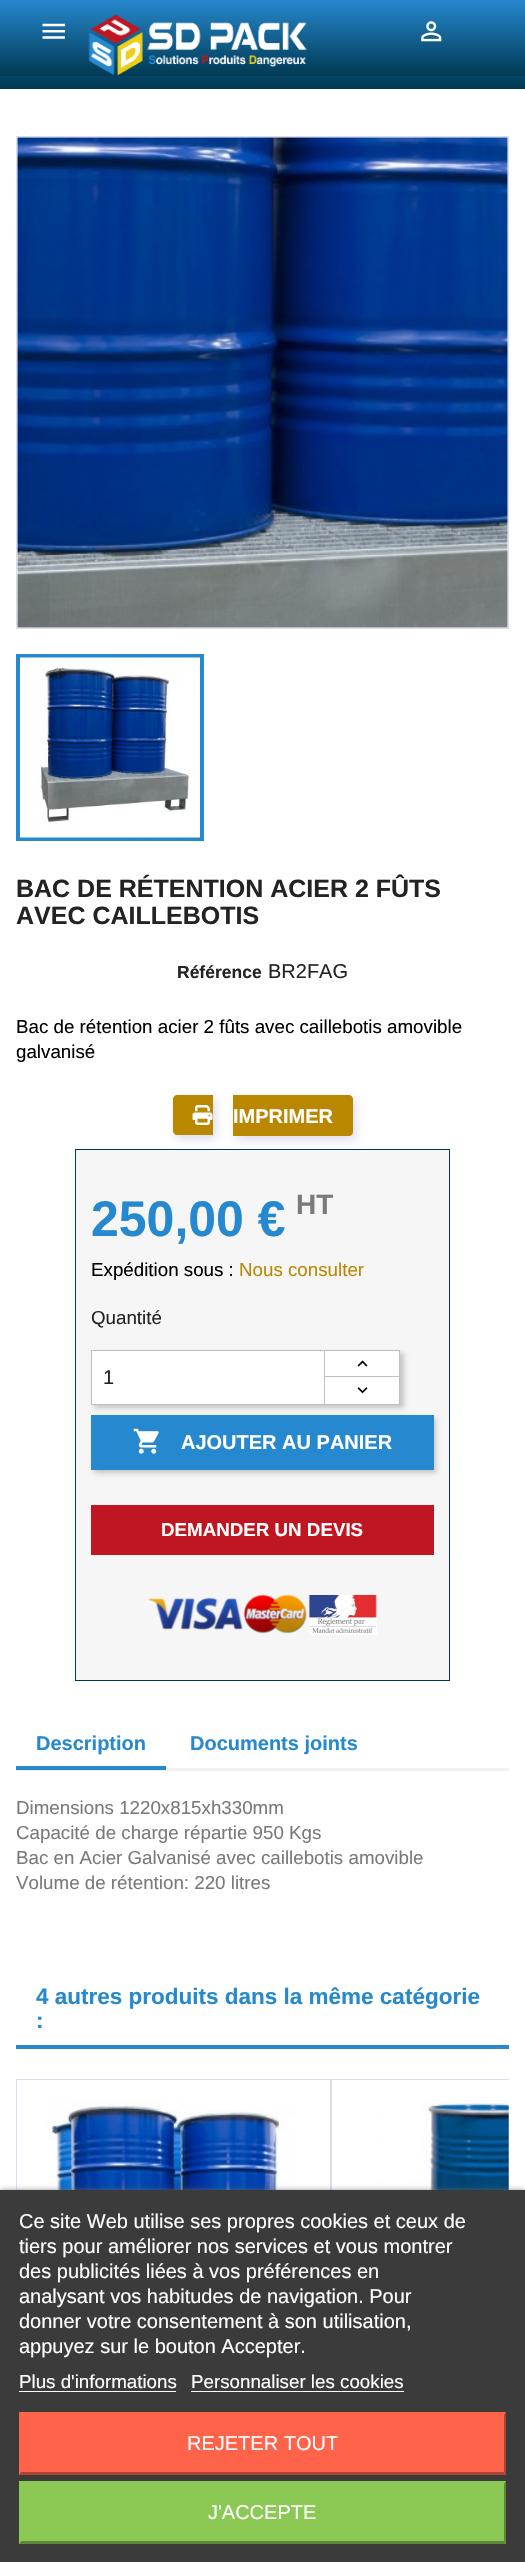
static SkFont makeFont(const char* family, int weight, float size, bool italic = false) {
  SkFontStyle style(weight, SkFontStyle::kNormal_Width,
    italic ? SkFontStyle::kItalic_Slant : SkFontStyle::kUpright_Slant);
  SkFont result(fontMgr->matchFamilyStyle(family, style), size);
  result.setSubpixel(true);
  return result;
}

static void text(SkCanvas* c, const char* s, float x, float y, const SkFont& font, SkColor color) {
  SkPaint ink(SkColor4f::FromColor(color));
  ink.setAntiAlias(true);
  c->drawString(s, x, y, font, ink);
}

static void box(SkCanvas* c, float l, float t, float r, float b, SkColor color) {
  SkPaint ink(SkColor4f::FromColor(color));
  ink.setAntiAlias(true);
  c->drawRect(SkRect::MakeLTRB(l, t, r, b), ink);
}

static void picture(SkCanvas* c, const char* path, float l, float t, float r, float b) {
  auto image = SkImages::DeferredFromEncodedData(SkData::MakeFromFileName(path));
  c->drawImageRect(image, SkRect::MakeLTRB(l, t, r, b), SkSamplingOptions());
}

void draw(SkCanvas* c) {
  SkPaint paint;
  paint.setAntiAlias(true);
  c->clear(0xffffffff);
  {
    const SkColor colors[] = {0xff2688ce, 0xff013953};
    const float stops[] = {0, 1};
    const SkPoint ends[] = {{263, 0}, {263, 89}};
    paint.setShader(SkGradientShader::MakeLinear(ends, colors, stops, 2, SkTileMode::kClamp));
    paint.setAlpha(255);
  }
  c->drawRect(SkRect::MakeLTRB(0, 76, 525, 89), paint);
  {
    const SkColor colors[] = {0xff2688ce, 0xff013953};
    const float stops[] = {0, 1};
    const SkPoint ends[] = {{263, 0}, {263, 76}};
    paint.setShader(SkGradientShader::MakeLinear(ends, colors, stops, 2, SkTileMode::kClamp));
    paint.setAlpha(255);
  }
  c->drawRect(SkRect::MakeLTRB(0, 0, 525, 76), paint);
  picture(c, "img_01.png", 42, 23, 65, 39);
  picture(c, "img_02.png", 88, 14, 307, 76);
  picture(c, "img_03.png", 421, 21, 442, 42);
  paint.setStyle(SkPaint::kStroke_Style);
  paint.setStrokeWidth(1);
  paint.setShader(nullptr);
  paint.setColor(0xffddddee);
  c->drawRect(SkRect::MakeLTRB(16.5f, 136.5f, 508.5f, 628.5f), paint);
  picture(c, "img_04.png", 17, 137, 508, 628);
  paint.setStrokeWidth(4);
  paint.setColor(0xff2688ce);
  c->drawRect(SkRect::MakeLTRB(18, 656, 202, 839), paint);
  picture(c, "img_05.png", 20, 657, 200, 838);
  SkFont face1 = makeFont("Liberation Sans", 700, 25);
  text(c, "BAC DE RÉTENTION ACIER 2 FÛTS", 16, 897, face1, 0xff232323);
  text(c, "AVEC CAILLEBOTIS", 16, 924, face1, 0xff232323);
  SkFont face2 = makeFont("Liberation Sans", 700, 17.5f);
  text(c, "Référence", 177, 978, face2, 0xff232323);
  SkFont face3 = makeFont("Liberation Sans", 400, 20);
  text(c, "BR2FAG", 268, 978, face3, 0xff232323);
  SkFont face4 = makeFont("Liberation Sans", 400, 18.75f);
  text(c, "Bac de rétention acier 2 fûts avec caillebotis amovible", 16, 1033, face4, 0xff000000);
  text(c, "galvanisé", 16, 1058, face4, 0xff000000);
  paint.setStyle(SkPaint::kFill_Style);
  paint.setColor(0xffddddee);
  paint.setMaskFilter(SkMaskFilter::MakeBlur(kNormal_SkBlurStyle, 5));
  c->drawRoundRect(SkRect::MakeLTRB(176, 1099, 216, 1139), 4, 4, paint);
  paint.setMaskFilter(nullptr);
  paint.setColor(0xffb98700);
  c->drawPath(SkPathBuilder().moveTo(177, 1095).lineTo(213, 1095).lineTo(213, 1135).lineTo(177, 1135).cubicTo(175, 1135, 173, 1133, 173, 1131).lineTo(173, 1099).cubicTo(173, 1097, 175, 1095, 177, 1095).close().detach(), paint);
  paint.setColor(0xffddddee);
  paint.setMaskFilter(SkMaskFilter::MakeBlur(kNormal_SkBlurStyle, 5));
  c->drawRoundRect(SkRect::MakeLTRB(236, 1099, 356, 1140), 4, 4, paint);
  paint.setMaskFilter(nullptr);
  paint.setColor(0xffb98700);
  c->drawPath(SkPathBuilder().moveTo(233, 1095).lineTo(349, 1095).cubicTo(351, 1095, 353, 1097, 353, 1099).lineTo(353, 1132).cubicTo(353, 1134, 351, 1136, 349, 1136).lineTo(233, 1136).close().detach(), paint);
  picture(c, "img_06.png", 192, 1105, 213, 1125);
  SkFont face5 = makeFont("Liberation Sans", 700, 20);
  text(c, "IMPRIMER", 233, 1123, face5, 0xffffffff);
  paint.setColor(0xfff6f6f6);
  c->drawRect(SkRect::MakeLTRB(75.5f, 1149.5f, 449.5f, 1680.5f), paint);
  paint.setStyle(SkPaint::kStroke_Style);
  paint.setStrokeWidth(1);
  paint.setColor(0xff013953);
  c->drawRect(SkRect::MakeLTRB(75.5f, 1149.5f, 449.5f, 1680.5f), paint);
  SkFont face6 = makeFont("Liberation Sans", 700, 50);
  text(c, "250,00 €", 91, 1236, face6, 0xff2688ce);
  SkFont face7 = makeFont("Liberation Sans", 700, 28);
  text(c, "HT", 296, 1214, face7, 0xff7a7a7a);
  text(c, "Expédition sous :", 91, 1276, face4, 0xff000000);
  text(c, "Nous consulter", 239, 1276, face4, 0xffb98700);
  text(c, "Quantité", 91, 1324, face4, 0xff232323);
  paint.setStyle(SkPaint::kFill_Style);
  paint.setColor(0x33000000);
  paint.setMaskFilter(SkMaskFilter::MakeBlur(kNormal_SkBlurStyle, 2.5f));
  c->drawRect(SkRect::MakeLTRB(94, 1418, 436, 1473), paint);
  paint.setMaskFilter(nullptr);
  box(c, 91, 1415, 434, 1470, 0xff2688ce);
  paint.setMaskFilter(SkMaskFilter::MakeBlur(kNormal_SkBlurStyle, 2.5f));
  c->drawRect(SkRect::MakeLTRB(94, 1353, 404, 1408), paint);
  paint.setMaskFilter(nullptr);
  box(c, 325, 1351, 399, 1376, 0xffffffff);
  paint.setStyle(SkPaint::kStroke_Style);
  paint.setColor(0xffbfbfbf);
  c->drawRect(SkRect::MakeLTRB(324.5f, 1350.5f, 399.5f, 1378.5f), paint);
  paint.setStyle(SkPaint::kFill_Style);
  paint.setColor(0xffffffff);
  c->drawRect(SkRect::MakeLTRB(324.5f, 1376.5f, 399.5f, 1404.5f), paint);
  paint.setStyle(SkPaint::kStroke_Style);
  paint.setColor(0xffbfbfbf);
  c->drawRect(SkRect::MakeLTRB(324.5f, 1376.5f, 399.5f, 1404.5f), paint);
  paint.setStyle(SkPaint::kFill_Style);
  paint.setColor(0xffffffff);
  c->drawRect(SkRect::MakeLTRB(91.5f, 1350.5f, 324.5f, 1404.5f), paint);
  paint.setStyle(SkPaint::kStroke_Style);
  paint.setColor(0xffbfbfbf);
  c->drawRect(SkRect::MakeLTRB(91.5f, 1350.5f, 324.5f, 1404.5f), paint);
  text(c, "1", 103, 1384, face3, 0xff232323);
  picture(c, "img_07.png", 357, 1360, 368, 1367);
  picture(c, "img_08.png", 357, 1387, 368, 1394);
  picture(c, "img_09.png", 133, 1428, 159, 1454);
  text(c, "AJOUTER AU PANIER", 181, 1449, face5, 0xffffffff);
  box(c, 91, 1505, 434, 1555, 0xffbf1622);
  SkFont face8 = makeFont("Liberation Sans", 700, 18.75f);
  text(c, "DEMANDER UN DEVIS", 161, 1536, face8, 0xffffffff);
  picture(c, "img_10.png", 147, 1594, 377, 1635);
  box(c, 16, 1768, 509, 1771, 0xfff1f1f1);
  box(c, 16, 1766, 166, 1770, 0xff2688ce);
  text(c, "Description", 36, 1750, face5, 0xff2688ce);
  text(c, "Documents joints", 190, 1750, face5, 0xff2688ce);
  text(c, "Dimensions 1220x815xh330mm", 16, 1814, face4, 0xff7a7a7a);
  text(c, "Capacité de charge répartie 950 Kgs", 16, 1839, face4, 0xff7a7a7a);
  text(c, "Bac en Acier Galvanisé avec caillebotis amovible", 16, 1864, face4, 0xff7a7a7a);
  text(c, "Volume de rétention: 220 litres", 16, 1889, face4, 0xff7a7a7a);
  box(c, 16, 2045, 509, 2049, 0xff2688ce);
  SkFont face9 = makeFont("Liberation Sans", 700, 22.5f);
  text(c, "4 autres produits dans la même catégorie", 36, 2004, face9, 0xff2688ce);
  text(c, ":", 36, 2028, face9, 0xff2688ce);
  paint.setColor(0xffddddee);
  c->drawRect(SkRect::MakeLTRB(16.5f, 2079.5f, 330.5f, 2525.5f), paint);
  picture(c, "img_11.png", 47, 2100, 296, 2190);
  c->save();
  c->clipRect(SkRect::MakeLTRB(16, 2079, 509, 2556));
  c->drawRect(SkRect::MakeLTRB(331.5f, 2079.5f, 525.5f, 2525.5f), paint);
  c->restore();
  picture(c, "img_12.png", 376, 2100, 509, 2190);
  paint.setStyle(SkPaint::kFill_Style);
  paint.setColor(0xff707070);
  paint.setMaskFilter(SkMaskFilter::MakeBlur(kNormal_SkBlurStyle, 3));
  c->drawRect(SkRect::MakeLTRB(0, 2191, 525, 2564), paint);
  paint.setMaskFilter(nullptr);
  box(c, 0, 2190, 525, 2562, 0xff3b3b3b);
  text(c, "Ce site Web utilise ses propres cookies et ceux de", 19, 2228, face3, 0xffffffff);
  text(c, "tiers pour améliorer nos services et vous montrer", 19, 2253, face3, 0xffffffff);
  text(c, "des publicités liées à vos préférences en", 19, 2278, face3, 0xffffffff);
  text(c, "analysant vos habitudes de navigation. Pour", 19, 2303, face3, 0xffffffff);
  text(c, "donner votre consentement à son utilisation,", 19, 2328, face3, 0xffffffff);
  text(c, "appuyez sur le bouton Accepter.", 19, 2353, face3, 0xffffffff);
  text(c, "Plus d'informations", 19, 2388, face4, 0xffffffff);
  box(c, 19, 2391, 176, 2392, 0xffffffff);
  text(c, "Personnaliser les cookies", 191, 2388, face4, 0xffffffff);
  box(c, 191, 2391, 404, 2392, 0xffffffff);
  box(c, 19, 2413, 506, 2475, 0xffff644a);
  paint.setColor(0xffff644a);
  c->drawPath(SkPathBuilder().moveTo(19, 2412).lineTo(506, 2412).lineTo(504, 2415).lineTo(21, 2415).close().detach(), paint);
  paint.setColor(0xffaa4331);
  c->drawPath(SkPathBuilder().moveTo(506, 2412).lineTo(506, 2475).lineTo(504, 2472).lineTo(504, 2415).close().detach(), paint);
  c->drawPath(SkPathBuilder().moveTo(506, 2475).lineTo(19, 2475).lineTo(21, 2472).lineTo(504, 2472).close().detach(), paint);
  paint.setColor(0xffff644a);
  c->drawPath(SkPathBuilder().moveTo(19, 2475).lineTo(19, 2412).lineTo(21, 2415).lineTo(21, 2472).close().detach(), paint);
  text(c, "REJETER TOUT", 187, 2450, face3, 0xffffffff);
  box(c, 19, 2481, 506, 2544, 0xff8bc954);
  paint.setColor(0xff5d8638);
  c->drawPath(SkPathBuilder().moveTo(506, 2481).lineTo(506, 2544).lineTo(504, 2541).lineTo(504, 2484).close().detach(), paint);
  c->drawPath(SkPathBuilder().moveTo(506, 2544).lineTo(19, 2544).lineTo(21, 2541).lineTo(504, 2541).close().detach(), paint);
  paint.setColor(0xff8bc954);
  c->drawPath(SkPathBuilder().moveTo(19, 2544).lineTo(19, 2481).lineTo(21, 2484).lineTo(21, 2541).close().detach(), paint);
  text(c, "J'ACCEPTE", 208, 2519, face3, 0xffffffff);
}
